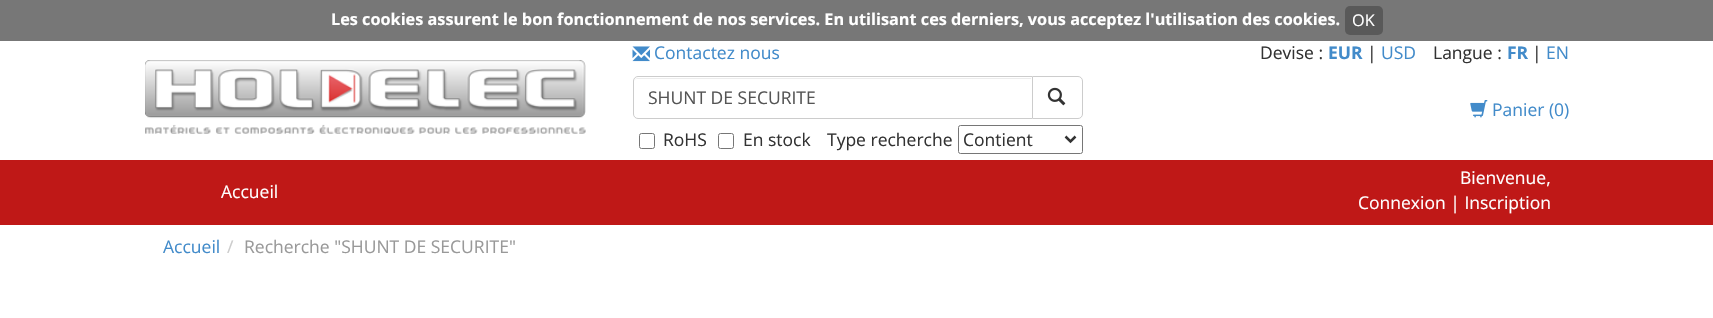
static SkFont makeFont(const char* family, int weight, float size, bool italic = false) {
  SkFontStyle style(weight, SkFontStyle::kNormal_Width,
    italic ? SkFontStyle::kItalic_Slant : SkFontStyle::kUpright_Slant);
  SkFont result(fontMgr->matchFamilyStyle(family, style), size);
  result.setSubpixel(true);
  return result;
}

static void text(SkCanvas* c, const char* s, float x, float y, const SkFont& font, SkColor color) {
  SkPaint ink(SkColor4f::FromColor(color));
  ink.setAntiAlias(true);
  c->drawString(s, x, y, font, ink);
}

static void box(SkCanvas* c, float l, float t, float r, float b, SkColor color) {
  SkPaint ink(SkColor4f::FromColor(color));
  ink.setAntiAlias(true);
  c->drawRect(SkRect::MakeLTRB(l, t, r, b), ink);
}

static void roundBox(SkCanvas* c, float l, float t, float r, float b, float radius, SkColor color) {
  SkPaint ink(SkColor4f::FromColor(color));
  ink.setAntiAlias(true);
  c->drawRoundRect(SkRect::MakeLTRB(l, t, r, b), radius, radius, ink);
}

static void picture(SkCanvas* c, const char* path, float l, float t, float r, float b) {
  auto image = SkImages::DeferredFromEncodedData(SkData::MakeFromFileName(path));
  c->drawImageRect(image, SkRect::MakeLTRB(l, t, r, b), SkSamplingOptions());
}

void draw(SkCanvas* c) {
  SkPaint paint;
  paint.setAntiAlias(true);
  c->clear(0xffffffff);
  box(c, 0, 0, 1713, 41, 0xff777777);
  SkFont face1 = makeFont("Open Sans", 700, 16.25f);
  text(c, "Les cookies assurent le bon fonctionnement de nos services. En utilisant ces derniers, vous acceptez l'utilisation des cookies.", 331, 25, face1, 0xffffffff);
  roundBox(c, 1345, 6, 1383, 35, 5, 0xff595959);
  SkFont face2 = makeFont("Open Sans", 400, 16.25f);
  text(c, "OK", 1352, 26, face2, 0xffffffff);
  picture(c, "img_01.png", 145, 60, 586, 134);
  picture(c, "img_02.png", 632, 46, 650, 62);
  SkFont face3 = makeFont("Open Sans", 400, 17.5f);
  text(c, "Contactez nous", 654, 59, face3, 0xff428bca);
  text(c, "Devise :", 1260, 59, face3, 0xff333333);
  SkFont face4 = makeFont("Open Sans", 700, 17.5f);
  text(c, "EUR", 1328, 59, face4, 0xff428bca);
  text(c, "|", 1367, 59, face3, 0xff333333);
  text(c, "USD", 1381, 59, face3, 0xff428bca);
  text(c, "Langue :", 1433, 59, face3, 0xff333333);
  text(c, "FR", 1507, 59, face4, 0xff428bca);
  text(c, "|", 1532, 59, face3, 0xff333333);
  text(c, "EN", 1546, 59, face3, 0xff428bca);
  paint.setStyle(SkPaint::kStroke_Style);
  paint.setStrokeWidth(1);
  paint.setColor(0xffcccccc);
  c->drawPath(SkPathBuilder().moveTo(1031.5f, 76.5f).lineTo(1078, 76.5f).cubicTo(1080.5f, 76.5f, 1082.5f, 78.5f, 1082.5f, 81).lineTo(1082.5f, 114).cubicTo(1082.5f, 116.5f, 1080.5f, 118.5f, 1078, 118.5f).lineTo(1031.5f, 118.5f).close().detach(), paint);
  paint.setStyle(SkPaint::kFill_Style);
  paint.setColor(0xffffffff);
  c->drawPath(SkPathBuilder().moveTo(638, 76).lineTo(1033, 76).lineTo(1033, 119).lineTo(638, 119).cubicTo(635, 119, 633, 117, 633, 114).lineTo(633, 81).cubicTo(633, 78, 635, 76, 638, 76).close().detach(), paint);
  paint.setColor(0xffececec);
  c->drawPath(SkPathBuilder().moveTo(638, 79).lineTo(1031, 79).lineTo(1031, 78).lineTo(638, 78).cubicTo(636, 78, 635, 79, 634, 80).cubicTo(635, 79, 636, 79, 638, 79).close().detach(), paint);
  paint.setStyle(SkPaint::kStroke_Style);
  paint.setColor(0xffcccccc);
  c->drawPath(SkPathBuilder().moveTo(638, 76.5f).lineTo(1032.5f, 76.5f).lineTo(1032.5f, 118.5f).lineTo(638, 118.5f).cubicTo(635.5f, 118.5f, 633.5f, 116.5f, 633.5f, 114).lineTo(633.5f, 81).cubicTo(633.5f, 78.5f, 635.5f, 76.5f, 638, 76.5f).close().detach(), paint);
  text(c, "SHUNT DE SECURITE", 648, 104, face3, 0xff555555);
  picture(c, "img_03.png", 1047, 87, 1066, 106);
  paint.setColor(0xff767676);
  c->drawRoundRect(SkRect::MakeLTRB(639.5f, 133.5f, 654.5f, 148.5f), 2, 2, paint);
  text(c, "RoHS", 663, 146, face3, 0xff333333);
  c->drawRoundRect(SkRect::MakeLTRB(718.5f, 133.5f, 733.5f, 148.5f), 2, 2, paint);
  text(c, "En stock", 743, 146, face3, 0xff333333);
  text(c, "Type recherche", 827, 146, face3, 0xff333333);
  c->drawRoundRect(SkRect::MakeLTRB(958.5f, 125.5f, 1082.5f, 153.5f), 2, 2, paint);
  paint.setStrokeWidth(2.5f);
  paint.setColor(0xff333333);
  c->drawPath(SkPathBuilder().moveTo(1065.5f, 136.5f).lineTo(1070.5f, 141.5f).lineTo(1075.5f, 136.5f).detach(), paint);
  text(c, "Contient", 963, 146, face3, 0xff333333);
  picture(c, "img_04.png", 1470, 100, 1488, 118);
  text(c, "Panier (0)", 1492, 116, face3, 0xff428bca);
  box(c, 0, 160, 1713, 225, 0xffbf1817);
  text(c, "Accueil", 221, 198, face3, 0xffffffff);
  text(c, "Bienvenue,", 1460, 184, face3, 0xffffffff);
  text(c, "Connexion | Inscription", 1358, 209, face3, 0xffffffff);
  text(c, "Accueil", 163, 253, face3, 0xff428bca);
  text(c, "/", 227, 253, face3, 0xffcccccc);
  text(c, "Recherche \"SHUNT DE SECURITE\"", 244, 253, face3, 0xff999999);
}
